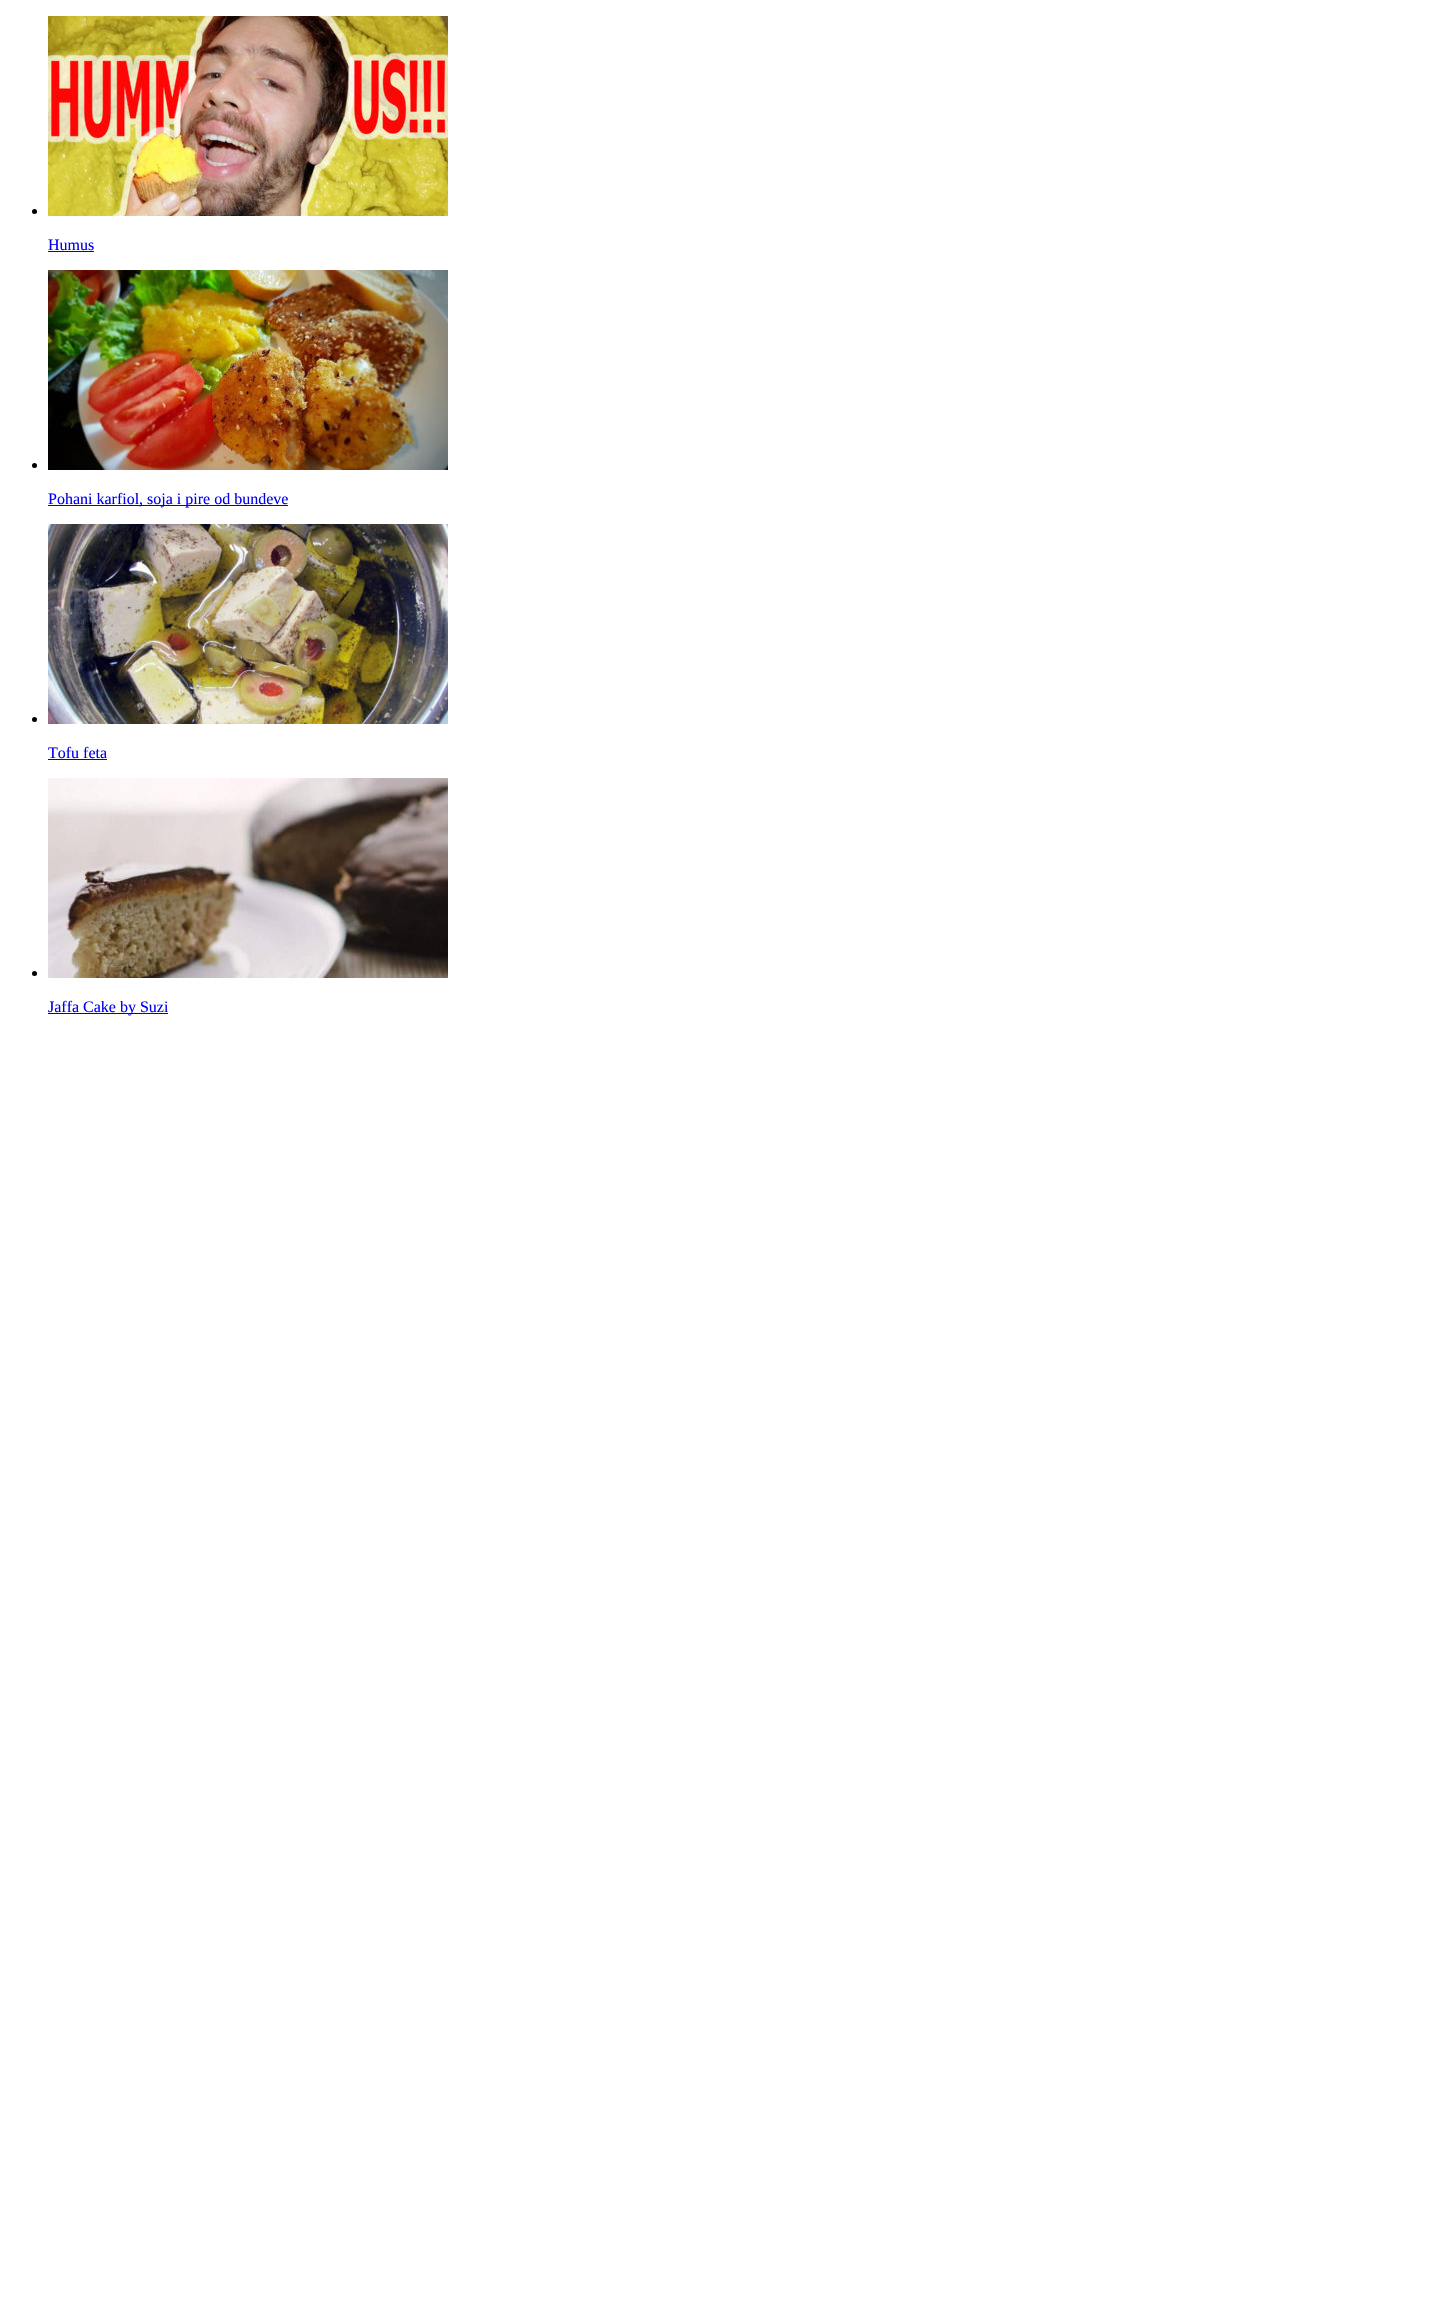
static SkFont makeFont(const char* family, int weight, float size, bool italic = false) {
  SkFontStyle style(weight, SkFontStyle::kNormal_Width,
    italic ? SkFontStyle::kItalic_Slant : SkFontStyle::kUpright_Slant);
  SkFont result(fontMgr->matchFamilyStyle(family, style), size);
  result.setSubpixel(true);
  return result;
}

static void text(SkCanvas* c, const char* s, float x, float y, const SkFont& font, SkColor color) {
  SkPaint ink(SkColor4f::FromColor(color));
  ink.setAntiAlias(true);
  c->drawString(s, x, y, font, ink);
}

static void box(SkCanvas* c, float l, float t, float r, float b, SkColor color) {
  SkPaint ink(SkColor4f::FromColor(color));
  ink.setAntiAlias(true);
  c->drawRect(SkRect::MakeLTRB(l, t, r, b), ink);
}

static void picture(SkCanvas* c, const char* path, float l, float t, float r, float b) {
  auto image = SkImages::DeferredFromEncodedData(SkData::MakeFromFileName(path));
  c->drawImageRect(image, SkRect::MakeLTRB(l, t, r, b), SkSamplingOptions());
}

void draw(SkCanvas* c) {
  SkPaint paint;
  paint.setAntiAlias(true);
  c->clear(0xffffffff);
  paint.setColor(0xff000000);
  c->drawCircle(34.5f, 211.5f, 2.5f, paint);
  picture(c, "img_01.png", 48, 16, 448, 216);
  SkFont face1 = makeFont("Liberation Serif", 400, 16);
  text(c, "Humus", 48, 250, face1, 0xff0000ee);
  box(c, 48, 251, 94, 252, 0xff0000ee);
  c->drawCircle(34.5f, 465.5f, 2.5f, paint);
  picture(c, "img_02.png", 48, 270, 448, 470);
  box(c, 48, 505, 288, 506, 0xff0000ee);
  text(c, "Pohani karfiol, soja i pire od bundeve", 48, 504, face1, 0xff0000ee);
  c->drawCircle(34.5f, 719.5f, 2.5f, paint);
  picture(c, "img_03.png", 48, 524, 448, 724);
  text(c, "Tofu feta", 48, 758, face1, 0xff0000ee);
  box(c, 48, 759, 107, 760, 0xff0000ee);
  c->drawCircle(34.5f, 973.5f, 2.5f, paint);
  picture(c, "img_04.png", 48, 778, 448, 978);
  box(c, 48, 1013, 168, 1014, 0xff0000ee);
  text(c, "Jaffa Cake by Suzi", 48, 1012, face1, 0xff0000ee);
}
